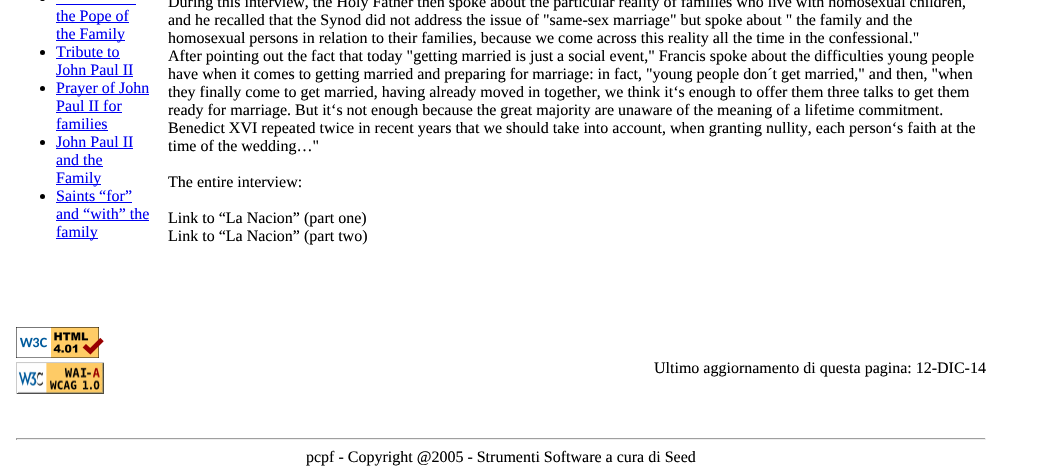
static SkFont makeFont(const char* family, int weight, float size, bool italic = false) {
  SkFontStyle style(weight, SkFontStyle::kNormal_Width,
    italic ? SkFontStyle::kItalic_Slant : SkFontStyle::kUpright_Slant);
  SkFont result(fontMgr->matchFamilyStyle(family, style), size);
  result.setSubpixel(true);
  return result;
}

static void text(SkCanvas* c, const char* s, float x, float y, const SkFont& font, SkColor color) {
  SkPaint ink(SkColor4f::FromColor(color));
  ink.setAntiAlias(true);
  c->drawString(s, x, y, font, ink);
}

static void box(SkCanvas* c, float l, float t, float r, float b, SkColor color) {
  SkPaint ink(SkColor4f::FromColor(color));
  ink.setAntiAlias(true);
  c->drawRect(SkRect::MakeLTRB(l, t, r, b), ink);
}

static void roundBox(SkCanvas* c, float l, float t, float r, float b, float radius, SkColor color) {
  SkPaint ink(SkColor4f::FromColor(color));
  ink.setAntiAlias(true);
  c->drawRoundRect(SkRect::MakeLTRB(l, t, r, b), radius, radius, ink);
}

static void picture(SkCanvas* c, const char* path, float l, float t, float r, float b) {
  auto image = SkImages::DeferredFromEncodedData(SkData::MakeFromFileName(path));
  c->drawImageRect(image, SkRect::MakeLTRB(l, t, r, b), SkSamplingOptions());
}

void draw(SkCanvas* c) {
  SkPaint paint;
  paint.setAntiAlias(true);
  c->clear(0xffffffff);
  roundBox(c, 40, -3, 45, 1, 2.5f, 0xff000000);
  box(c, 56, 22, 129, 23, 0xff0000ee);
  SkFont face1 = makeFont("Liberation Serif", 400, 16);
  text(c, "the Pope of", 56, 21, face1, 0xff0000ee);
  box(c, 56, 4, 136, 5, 0xff0000ee);
  box(c, 56, 40, 125, 41, 0xff0000ee);
  text(c, "the Family", 56, 39, face1, 0xff0000ee);
  paint.setColor(0xff000000);
  c->drawCircle(42.5f, 52.5f, 2.5f, paint);
  text(c, "Tribute to", 56, 57, face1, 0xff0000ee);
  box(c, 56, 58, 120, 59, 0xff0000ee);
  text(c, "John Paul II", 56, 75, face1, 0xff0000ee);
  box(c, 56, 76, 133, 77, 0xff0000ee);
  c->drawCircle(42.5f, 88.5f, 2.5f, paint);
  box(c, 56, 94, 149, 95, 0xff0000ee);
  text(c, "Prayer of John", 56, 93, face1, 0xff0000ee);
  text(c, "Paul II for", 56, 111, face1, 0xff0000ee);
  box(c, 56, 112, 122, 113, 0xff0000ee);
  text(c, "families", 56, 129, face1, 0xff0000ee);
  box(c, 56, 130, 108, 131, 0xff0000ee);
  c->drawCircle(42.5f, 142.5f, 2.5f, paint);
  text(c, "John Paul II", 56, 147, face1, 0xff0000ee);
  box(c, 56, 148, 133, 149, 0xff0000ee);
  text(c, "and the", 56, 165, face1, 0xff0000ee);
  box(c, 56, 166, 103, 167, 0xff0000ee);
  box(c, 56, 184, 101, 185, 0xff0000ee);
  text(c, "Family", 56, 183, face1, 0xff0000ee);
  c->drawCircle(42.5f, 196.5f, 2.5f, paint);
  text(c, "Saints “for”", 56, 201, face1, 0xff0000ee);
  box(c, 56, 202, 132, 203, 0xff0000ee);
  text(c, "and “with” the", 56, 219, face1, 0xff0000ee);
  box(c, 56, 220, 149, 221, 0xff0000ee);
  box(c, 56, 238, 98, 239, 0xff0000ee);
  text(c, "family", 56, 237, face1, 0xff0000ee);
  picture(c, "img_01.png", 16, 327, 104, 358);
  picture(c, "img_02.png", 16, 362, 104, 394);
  text(c, "During this interview, the Holy Father then spoke about the particular reality of families who live with homosexual children,", 168, 7, face1, 0xff000000);
  text(c, "and he recalled that the Synod did not address the issue of \"same-sex marriage\" but spoke about \" the family and the", 168, 25, face1, 0xff000000);
  text(c, "homosexual persons in relation to their families, because we come across this reality all the time in the confessional.\"", 168, 43, face1, 0xff000000);
  text(c, "After pointing out the fact that today \"getting married is just a social event,\" Francis spoke about the difficulties young people", 168, 61, face1, 0xff000000);
  text(c, "have when it comes to getting married and preparing for marriage: in fact, \"young people don´t get married,\" and then, \"when", 168, 79, face1, 0xff000000);
  text(c, "they finally come to get married, having already moved in together, we think it‘s enough to offer them three talks to get them", 168, 97, face1, 0xff000000);
  text(c, "ready for marriage. But it‘s not enough because the great majority are unaware of the meaning of a lifetime commitment.", 168, 115, face1, 0xff000000);
  text(c, "Benedict XVI repeated twice in recent years that we should take into account, when granting nullity, each person‘s faith at the", 168, 133, face1, 0xff000000);
  text(c, "time of the wedding…\"", 168, 151, face1, 0xff000000);
  text(c, "The entire interview:", 168, 187, face1, 0xff000000);
  text(c, "Link to “La Nacion” (part one)", 168, 223, face1, 0xff000000);
  text(c, "Link to “La Nacion” (part two)", 168, 241, face1, 0xff000000);
  text(c, "Ultimo aggiornamento di questa pagina: 12-DIC-14", 654, 373, face1, 0xff000000);
  box(c, 16, 438, 986, 439, 0xff9f9f9f);
  box(c, 985, 438, 986, 440, 0xffeeeeee);
  box(c, 16, 439, 986, 440, 0xffeeeeee);
  box(c, 16, 438, 17, 440, 0xff9f9f9f);
  text(c, "pcpf - Copyright @2005 - Strumenti Software a cura di Seed", 306, 462, face1, 0xff000000);
}
